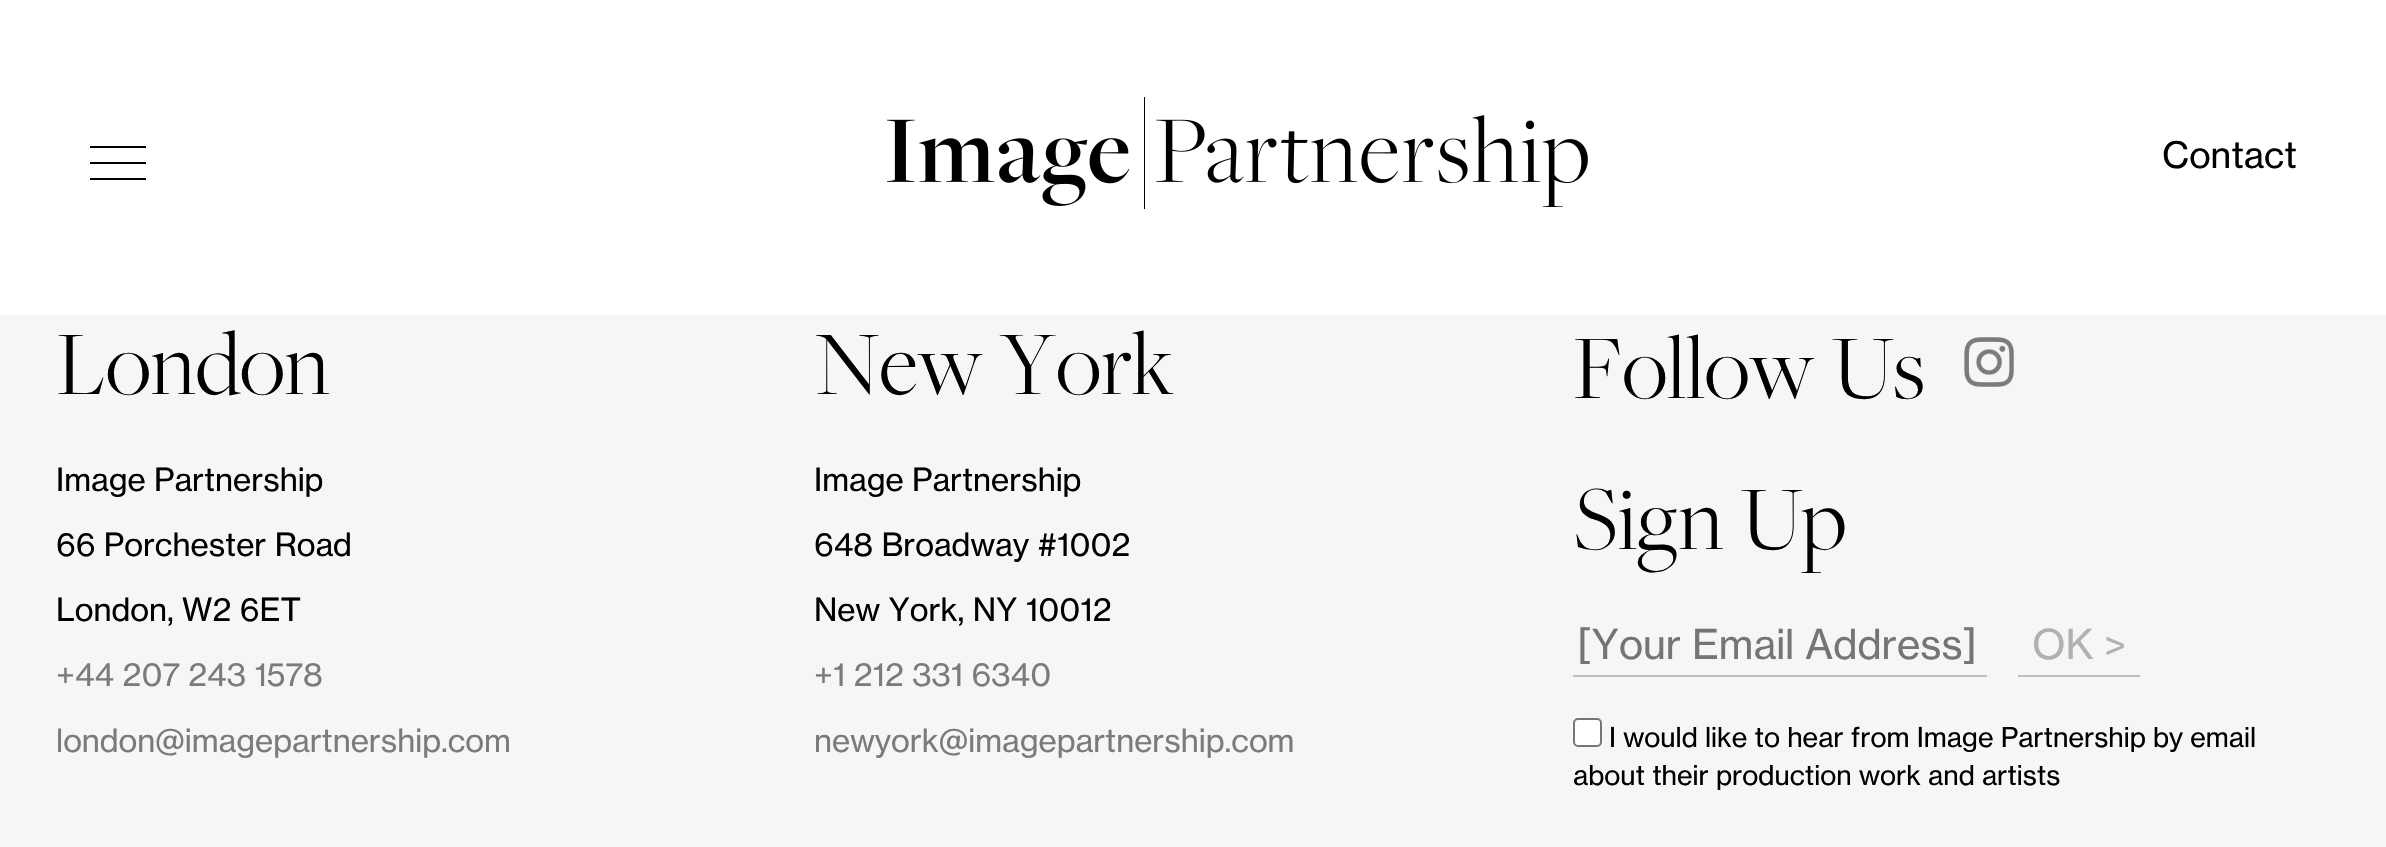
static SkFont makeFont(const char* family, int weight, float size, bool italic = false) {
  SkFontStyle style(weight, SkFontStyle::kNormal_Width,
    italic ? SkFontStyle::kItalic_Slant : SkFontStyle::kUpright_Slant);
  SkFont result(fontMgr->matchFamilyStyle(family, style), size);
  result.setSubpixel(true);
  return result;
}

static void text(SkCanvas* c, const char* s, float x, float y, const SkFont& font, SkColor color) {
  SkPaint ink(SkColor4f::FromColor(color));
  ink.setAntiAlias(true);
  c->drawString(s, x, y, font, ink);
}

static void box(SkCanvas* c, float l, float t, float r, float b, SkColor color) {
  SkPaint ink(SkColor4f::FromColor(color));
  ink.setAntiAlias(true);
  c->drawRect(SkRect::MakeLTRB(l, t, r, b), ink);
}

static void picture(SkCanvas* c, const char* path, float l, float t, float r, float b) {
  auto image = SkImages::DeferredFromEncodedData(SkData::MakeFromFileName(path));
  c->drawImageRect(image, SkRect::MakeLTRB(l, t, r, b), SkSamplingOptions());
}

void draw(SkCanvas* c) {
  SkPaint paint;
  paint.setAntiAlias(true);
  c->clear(0xfff5f6f6);
  box(c, 0, 0, 2386, 315, 0xffffffff);
  box(c, 90, 146, 146, 148, 0xff000000);
  box(c, 90, 162, 146, 164, 0xff000000);
  box(c, 90, 178, 146, 180, 0xff000000);
  picture(c, "img_01.png", 887, 97, 1588, 209);
  SkFont face1 = makeFont("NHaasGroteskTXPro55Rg", 400, 36);
  text(c, "Contact", 2162, 168, face1, 0xff000000);
  SkFont face2 = makeFont("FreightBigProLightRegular", 300, 94.5f);
  text(c, "London", 56, 394, face2, 0xff000000);
  SkFont face3 = makeFont("NHaasGroteskTXPro55Rg", 400, 31.5f);
  text(c, "Image Partnership", 56, 491, face3, 0xff000000);
  text(c, "66 Porchester Road", 56, 556, face3, 0xff000000);
  text(c, "London, W2 6ET", 56, 621, face3, 0xff000000);
  text(c, "+44 207 243 1578", 56, 686, face3, 0xff7b7b7b);
  text(c, "london@imagepartnership.com", 56, 752, face3, 0xff7b7b7b);
  text(c, "New York", 814, 394, face2, 0xff000000);
  text(c, "Image Partnership", 814, 491, face3, 0xff000000);
  text(c, "648 Broadway #1002", 814, 556, face3, 0xff000000);
  text(c, "New York, NY 10012", 814, 621, face3, 0xff000000);
  text(c, "+1 212 331 6340", 814, 686, face3, 0xff7b7b7b);
  text(c, "newyork@imagepartnership.com", 814, 752, face3, 0xff7b7b7b);
  text(c, "Follow Us", 1573, 398, face2, 0xff000000);
  picture(c, "img_02.png", 1964, 337, 2014, 387);
  text(c, "Sign Up", 1573, 549, face2, 0xff000000);
  box(c, 1573, 675, 1987, 677, 0xffbfbfbf);
  SkFont face4 = makeFont("NHaasGroteskTXPro55Rg", 400, 40.5f);
  text(c, "[Your Email Address]", 1577, 659, face4, 0xff757575);
  box(c, 2018, 675, 2140, 677, 0xffbfbfbf);
  text(c, "OK >", 2032, 659, face4, 0xffb0b1b1);
  paint.setColor(0xffffffff);
  c->drawRoundRect(SkRect::MakeLTRB(1574, 719, 1601, 746), 4, 4, paint);
  paint.setStyle(SkPaint::kStroke_Style);
  paint.setStrokeWidth(2);
  paint.setColor(0xff767676);
  c->drawRoundRect(SkRect::MakeLTRB(1574, 719, 1601, 746), 4, 4, paint);
  SkFont face5 = makeFont("NHaasGroteskTXPro55Rg", 400, 27);
  text(c, "I would like to hear from Image Partnership by email", 1609, 747, face5, 0xff000000);
  text(c, "about their production work and artists", 1573, 785, face5, 0xff000000);
}
